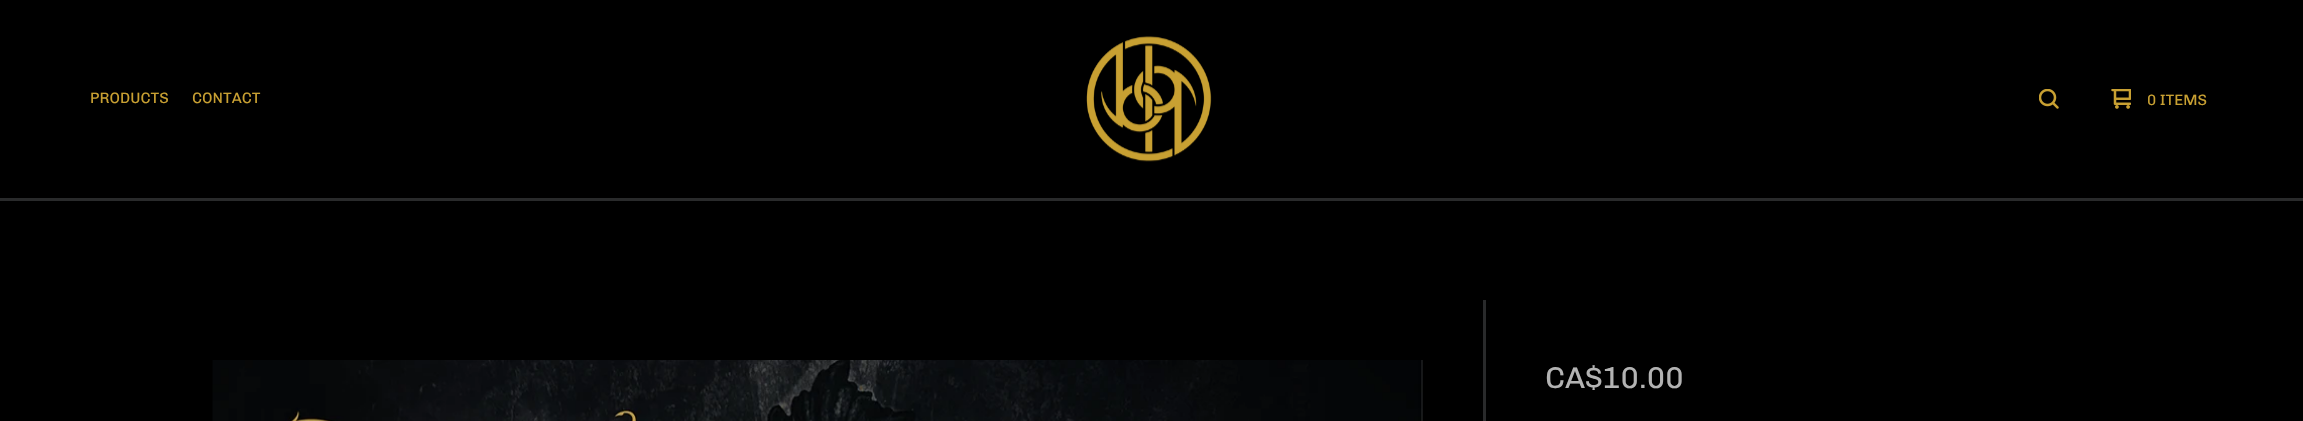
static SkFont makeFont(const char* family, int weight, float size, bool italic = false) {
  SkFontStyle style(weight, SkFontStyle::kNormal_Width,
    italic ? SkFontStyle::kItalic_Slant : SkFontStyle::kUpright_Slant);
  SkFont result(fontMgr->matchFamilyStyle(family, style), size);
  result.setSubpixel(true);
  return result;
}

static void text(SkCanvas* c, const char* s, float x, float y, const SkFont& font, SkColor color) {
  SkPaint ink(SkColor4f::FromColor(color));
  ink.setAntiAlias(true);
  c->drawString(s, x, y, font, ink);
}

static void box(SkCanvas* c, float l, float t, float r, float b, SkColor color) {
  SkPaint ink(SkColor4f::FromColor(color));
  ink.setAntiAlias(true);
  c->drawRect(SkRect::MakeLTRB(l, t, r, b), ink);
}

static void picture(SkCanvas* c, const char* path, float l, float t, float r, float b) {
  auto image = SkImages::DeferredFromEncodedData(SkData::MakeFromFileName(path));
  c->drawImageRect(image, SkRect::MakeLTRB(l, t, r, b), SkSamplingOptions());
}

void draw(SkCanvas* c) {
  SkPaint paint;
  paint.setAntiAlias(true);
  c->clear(0xff000000);
  box(c, 0, 198, 2303, 201, 0xff292a2b);
  SkFont face1 = makeFont("Chivo", 400, 15);
  text(c, "PRODUCTS", 90, 103, face1, 0xffc8a032);
  text(c, "CONTACT", 192, 103, face1, 0xffc8a032);
  picture(c, "img_01.png", 1086, 36, 1212, 162);
  picture(c, "img_02.png", 2039, 89, 2059, 109);
  picture(c, "img_03.png", 2111, 89, 2131, 109);
  text(c, "0 ITEMS", 2147, 105, face1, 0xffc8a032);
  box(c, 1483, 300, 1486, 421, 0xff292a2b);
  picture(c, "img_04.png", 212, 360, 1423, 421);
  SkFont face2 = makeFont("Chivo", 400, 30);
  text(c, "CA$10.00", 1545, 388, face2, 0xffb3b3b3);
}
